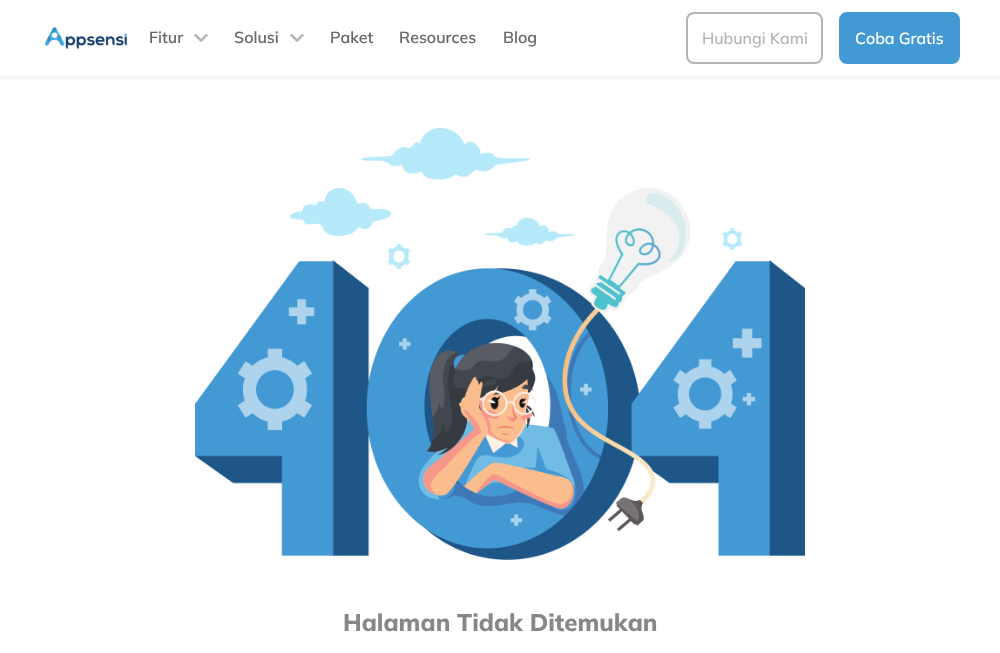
static SkFont makeFont(const char* family, int weight, float size, bool italic = false) {
  SkFontStyle style(weight, SkFontStyle::kNormal_Width,
    italic ? SkFontStyle::kItalic_Slant : SkFontStyle::kUpright_Slant);
  SkFont result(fontMgr->matchFamilyStyle(family, style), size);
  result.setSubpixel(true);
  return result;
}

static void text(SkCanvas* c, const char* s, float x, float y, const SkFont& font, SkColor color) {
  SkPaint ink(SkColor4f::FromColor(color));
  ink.setAntiAlias(true);
  c->drawString(s, x, y, font, ink);
}

static void picture(SkCanvas* c, const char* path, float l, float t, float r, float b) {
  auto image = SkImages::DeferredFromEncodedData(SkData::MakeFromFileName(path));
  c->drawImageRect(image, SkRect::MakeLTRB(l, t, r, b), SkSamplingOptions());
}

void draw(SkCanvas* c) {
  SkPaint paint;
  paint.setAntiAlias(true);
  c->clear(0xffffffff);
  c->save();
  c->clipRect(SkRect::MakeLTRB(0, 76, 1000, 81));
  paint.setColor(0x33b4b4b4);
  paint.setMaskFilter(SkMaskFilter::MakeBlur(kNormal_SkBlurStyle, 2));
  c->drawRect(SkRect::MakeLTRB(0, 2, 1000, 78), paint);
  paint.setMaskFilter(nullptr);
  c->restore();
  picture(c, "img_01.png", 44, 27, 128, 49);
  SkFont face1 = makeFont("Mulish", 600, 16);
  text(c, "Fitur", 149, 43, face1, 0xff686868);
  picture(c, "img_02.png", 194, 34, 208, 42);
  text(c, "Solusi", 234, 43, face1, 0xff686868);
  picture(c, "img_02.png", 290, 34, 304, 42);
  text(c, "Paket", 330, 43, face1, 0xff686868);
  text(c, "Resources", 399, 43, face1, 0xff686868);
  text(c, "Blog", 503, 43, face1, 0xff686868);
  paint.setStyle(SkPaint::kStroke_Style);
  paint.setStrokeWidth(2);
  paint.setColor(0xffb4b4b4);
  c->drawRoundRect(SkRect::MakeLTRB(687, 13, 822, 63), 7, 7, paint);
  SkFont face2 = makeFont("Mulish", 500, 16);
  text(c, "Hubungi Kami", 702, 44, face2, 0xffb4b4b4);
  paint.setStyle(SkPaint::kFill_Style);
  paint.setColor(0xff4399d4);
  c->drawRoundRect(SkRect::MakeLTRB(840, 13, 959, 63), 7, 7, paint);
  paint.setStyle(SkPaint::kStroke_Style);
  c->drawRoundRect(SkRect::MakeLTRB(840, 13, 959, 63), 7, 7, paint);
  text(c, "Coba Gratis", 855, 44, face2, 0xffffffff);
  picture(c, "img_03.png", 195, 128, 805, 560);
  SkFont face3 = makeFont("Mulish", 800, 24);
  text(c, "Halaman Tidak Ditemukan", 343, 631, face3, 0xff878787);
}
